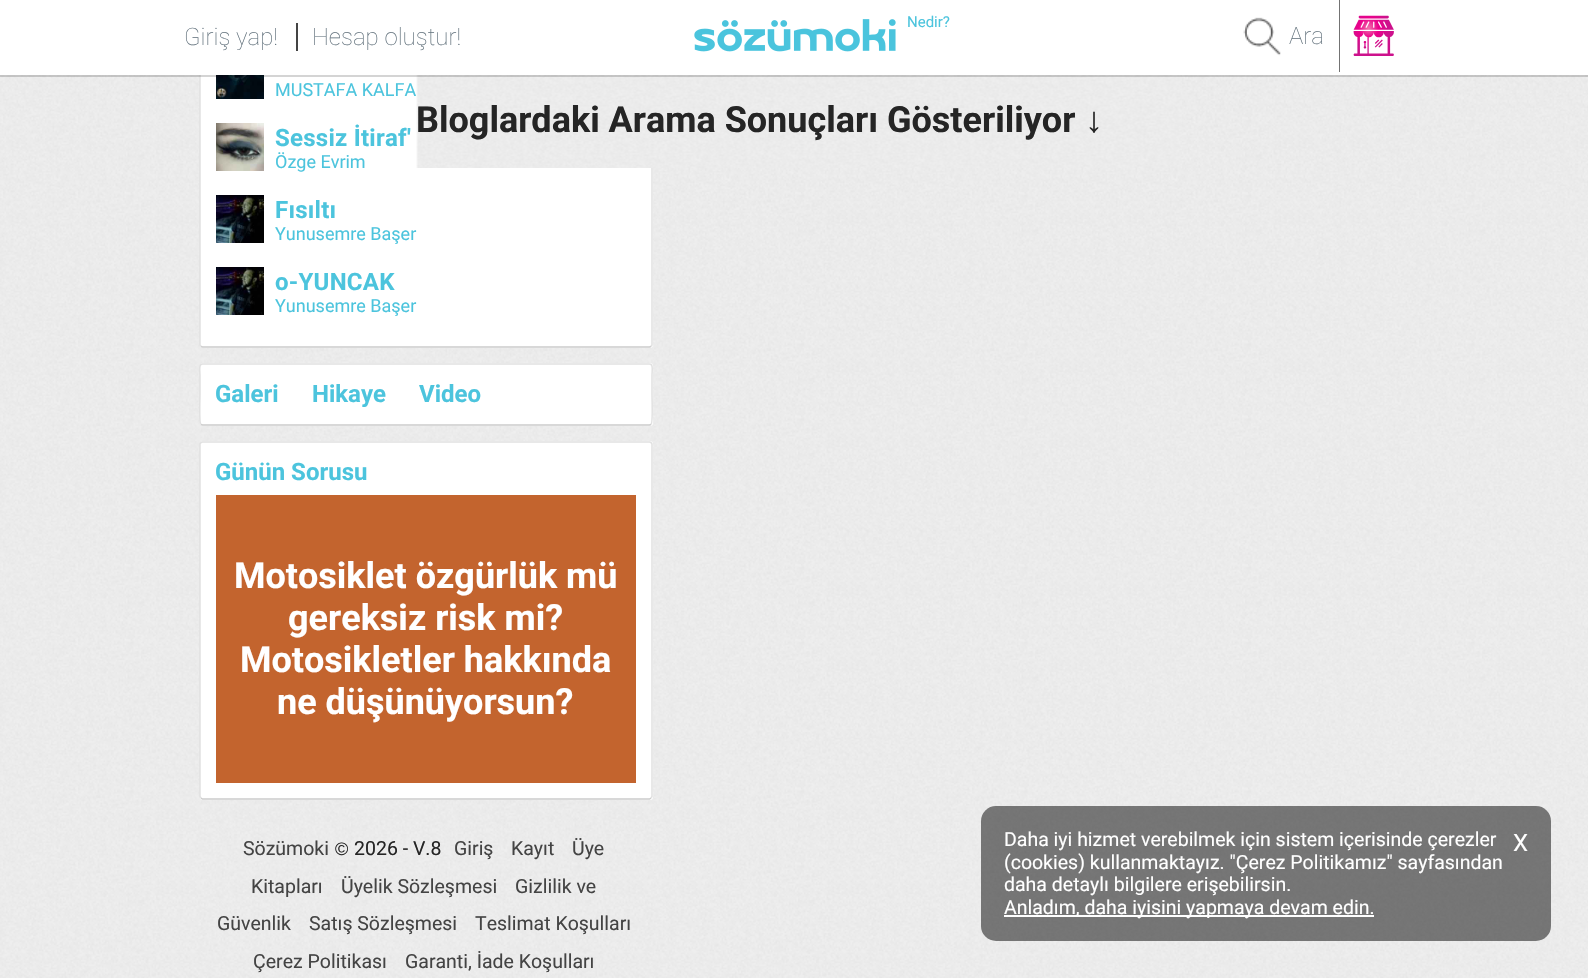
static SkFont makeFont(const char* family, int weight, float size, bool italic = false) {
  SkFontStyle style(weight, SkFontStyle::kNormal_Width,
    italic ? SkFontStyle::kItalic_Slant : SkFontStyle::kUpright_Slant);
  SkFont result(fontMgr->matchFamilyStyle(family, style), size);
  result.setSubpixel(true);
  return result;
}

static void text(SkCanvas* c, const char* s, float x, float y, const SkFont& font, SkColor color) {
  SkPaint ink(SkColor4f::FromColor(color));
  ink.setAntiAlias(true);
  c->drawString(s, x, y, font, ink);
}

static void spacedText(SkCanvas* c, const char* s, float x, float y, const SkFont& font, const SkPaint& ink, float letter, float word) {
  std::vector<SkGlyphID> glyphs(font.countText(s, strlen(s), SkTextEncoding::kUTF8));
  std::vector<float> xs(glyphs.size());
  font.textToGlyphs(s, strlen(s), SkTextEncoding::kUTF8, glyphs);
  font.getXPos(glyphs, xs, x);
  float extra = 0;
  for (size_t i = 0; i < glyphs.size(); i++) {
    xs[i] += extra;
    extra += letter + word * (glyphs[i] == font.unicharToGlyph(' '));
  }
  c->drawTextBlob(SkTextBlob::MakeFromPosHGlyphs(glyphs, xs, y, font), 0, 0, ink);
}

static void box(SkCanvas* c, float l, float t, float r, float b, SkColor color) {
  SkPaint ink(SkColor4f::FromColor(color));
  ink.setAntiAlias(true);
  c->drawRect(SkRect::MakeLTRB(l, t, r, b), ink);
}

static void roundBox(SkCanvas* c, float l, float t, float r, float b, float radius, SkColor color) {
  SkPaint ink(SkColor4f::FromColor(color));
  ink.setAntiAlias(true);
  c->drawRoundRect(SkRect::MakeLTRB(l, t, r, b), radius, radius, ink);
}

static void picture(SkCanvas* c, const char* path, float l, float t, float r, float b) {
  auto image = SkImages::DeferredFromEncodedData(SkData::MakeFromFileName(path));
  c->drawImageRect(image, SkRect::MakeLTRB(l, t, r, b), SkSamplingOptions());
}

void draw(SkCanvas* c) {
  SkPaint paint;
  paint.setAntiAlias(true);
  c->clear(0xffffffff);
  picture(c, "img_01.png", 0, 75, 1588, 978);
  roundBox(c, 200, -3, 653, 348, 3, 0xffffffff);
  paint.setStyle(SkPaint::kStroke_Style);
  paint.setStrokeWidth(1.5f);
  paint.setColor(0xffcccccc);
  c->drawPath(SkPathBuilder().moveTo(651, 346.5f).lineTo(649.5f, 347).lineTo(202.5f, 347).lineTo(201, 346.5f).detach(), paint);
  paint.setColor(0xffe1e1e1);
  c->drawPath(SkPathBuilder().moveTo(201, 346.5f).lineTo(200, 345).lineTo(200, -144).lineTo(201, -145.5f).lineTo(202.5f, -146).lineTo(649.5f, -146).lineTo(651, -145.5f).lineTo(652, -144).lineTo(652, 345).lineTo(651, 346.5f).detach(), paint);
  picture(c, "img_05.png", 216, 75, 264, 99);
  SkFont face1 = makeFont("Roboto", 400, 18);
  text(c, "MUSTAFA KALFA", 275, 96, face1, 0xff4cc4dd);
  picture(c, "img_09.png", 416, 75, 1182, 168);
  paint.setStyle(SkPaint::kFill_Style);
  paint.setColor(0x2b000000);
  c->drawPath(SkPathBuilder().moveTo(0, 75).lineTo(0, 77).lineTo(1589, 77).lineTo(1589, 2).lineTo(1588, 2).lineTo(1588, 75).close().detach(), paint);
  box(c, 199, 0, 653, 75, 0xffffffff);
  SkFont face2 = makeFont("Roboto", 100, 24);
  text(c, "Giriş yap!", 184, 45, face2, 0xff66757f);
  box(c, 296, 23, 298, 51, 0xff444444);
  text(c, "Hesap oluştur!", 312, 45, face2, 0xff66757f);
  picture(c, "img_02.png", 694, 19, 896, 52);
  SkFont face3 = makeFont("Roboto", 400, 15);
  text(c, "Nedir?", 907, 27, face3, 0xff4cc4dd);
  box(c, 1243, 0, 1340, 72, 0xff444444);
  picture(c, "img_03.png", 1223, 0, 1340, 72);
  text(c, "Ara", 1289, 44, face2, 0xff66757f);
  picture(c, "img_04.png", 1353, 15, 1394, 56);
  picture(c, "img_06.png", 216, 123, 264, 171);
  SkFont face4 = makeFont("Roboto", 700, 24);
  paint.setColor(0xff4cc4dd);
  spacedText(c, "Sessiz İtiraf'", 275, 146, face4, paint, 0.25f, 0);
  text(c, "Özge Evrim", 275, 168, face1, 0xff4cc4dd);
  picture(c, "img_07.png", 216, 195, 264, 243);
  spacedText(c, "Fısıltı", 275, 218, face4, paint, 0.25f, 0);
  text(c, "Yunusemre Başer", 275, 240, face1, 0xff4cc4dd);
  picture(c, "img_08.png", 216, 267, 264, 315);
  spacedText(c, "o-YUNCAK", 275, 290, face4, paint, 0.25f, 0);
  text(c, "Yunusemre Başer", 275, 312, face1, 0xff4cc4dd);
  roundBox(c, 200, 363, 653, 426, 3, 0xffffffff);
  paint.setStyle(SkPaint::kStroke_Style);
  paint.setColor(0xffcccccc);
  c->drawPath(SkPathBuilder().moveTo(651, 424.5f).lineTo(649.5f, 425).lineTo(202.5f, 425).lineTo(201, 424.5f).detach(), paint);
  paint.setColor(0xffe1e1e1);
  c->drawPath(SkPathBuilder().moveTo(201, 424.5f).cubicTo(199, 423, 200, 398.5f, 200, 394.5f).lineTo(200, 375.5f).cubicTo(200, 371, 198.5f, 364, 202.5f, 364).lineTo(649.5f, 364).cubicTo(653.5f, 364, 652, 371, 652, 375.5f).lineTo(652, 394.5f).cubicTo(652, 398.5f, 653, 423, 651, 424.5f).detach(), paint);
  text(c, "Galeri", 215, 402, face4, 0xff4cc4dd);
  text(c, "Hikaye", 312, 402, face4, 0xff4cc4dd);
  text(c, "Video", 419, 402, face4, 0xff4cc4dd);
  roundBox(c, 200, 441, 653, 800, 3, 0xffffffff);
  paint.setColor(0xffcccccc);
  c->drawPath(SkPathBuilder().moveTo(651, 798).lineTo(649.5f, 799).lineTo(202.5f, 799).lineTo(201, 798).detach(), paint);
  paint.setColor(0xffe1e1e1);
  c->drawPath(SkPathBuilder().moveTo(201, 798).lineTo(200, 796.5f).lineTo(200, 444).lineTo(201, 442.5f).lineTo(202.5f, 442).lineTo(649.5f, 442).lineTo(651, 442.5f).lineTo(652, 444).lineTo(652, 796.5f).lineTo(651, 798).detach(), paint);
  text(c, "Günün Sorusu", 215, 480, face4, 0xff4cc4dd);
  box(c, 216, 495, 636, 783, 0xffc3642e);
  SkFont face5 = makeFont("Roboto", 700, 36);
  text(c, "Motosiklet özgürlük mü", 234, 588, face5, 0xffffffff);
  text(c, "gereksiz risk mi?", 288, 630, face5, 0xffffffff);
  text(c, "Motosikletler hakkında", 240, 672, face5, 0xffffffff);
  text(c, "ne düşünüyorsun?", 277, 714, face5, 0xffffffff);
  SkFont face6 = makeFont("Roboto", 400, 19.5f);
  text(c, "Sözümoki", 243, 855, face6, 0xff444444);
  SkFont face7 = makeFont("Liberation Sans", 400, 18);
  text(c, "©", 335, 855, face7, 0xff252525);
  text(c, "2026 - V.8", 354, 855, face6, 0xff252525);
  text(c, "Giriş", 454, 855, face6, 0xff444444);
  text(c, "Kayıt", 511, 855, face6, 0xff444444);
  text(c, "Üye", 572, 855, face6, 0xff444444);
  text(c, "Kitapları", 251, 893, face6, 0xff444444);
  text(c, "Üyelik Sözleşmesi", 341, 893, face6, 0xff444444);
  text(c, "Gizlilik ve", 515, 893, face6, 0xff444444);
  text(c, "Güvenlik", 217, 930, face6, 0xff444444);
  text(c, "Satış Sözleşmesi", 309, 930, face6, 0xff444444);
  text(c, "Teslimat Koşulları", 475, 930, face6, 0xff444444);
  text(c, "Çerez Politikası", 253, 968, face6, 0xff444444);
  text(c, "Garanti, İade Koşulları", 405, 968, face6, 0xff444444);
  text(c, "Bloglardaki Arama Sonuçları Gösteriliyor", 416, 132, face5, 0xff252525);
  SkFont face8 = makeFont("Liberation Sans", 700, 36);
  text(c, "↓", 1085, 132, face8, 0xff252525);
  roundBox(c, 981, 806, 1551, 941, 15, 0x80000000);
  text(c, "Daha iyi hizmet verebilmek için sistem içerisinde çerezler", 1004, 846, face6, 0xffffffff);
  text(c, "(cookies) kullanmaktayız. \"Çerez Politikamız\" sayfasından", 1004, 869, face6, 0xffffffff);
  text(c, "daha detaylı bilgilere erişebilirsin.", 1004, 891, face6, 0xffffffff);
  SkFont face9 = makeFont("Roboto", 400, 24);
  text(c, "X", 1513, 851, face9, 0xffffffff);
  box(c, 1004, 915, 1374, 917, 0xffffffff);
  text(c, "Anladım, daha iyisini yapmaya devam edin.", 1004, 914, face6, 0xffffffff);
}
